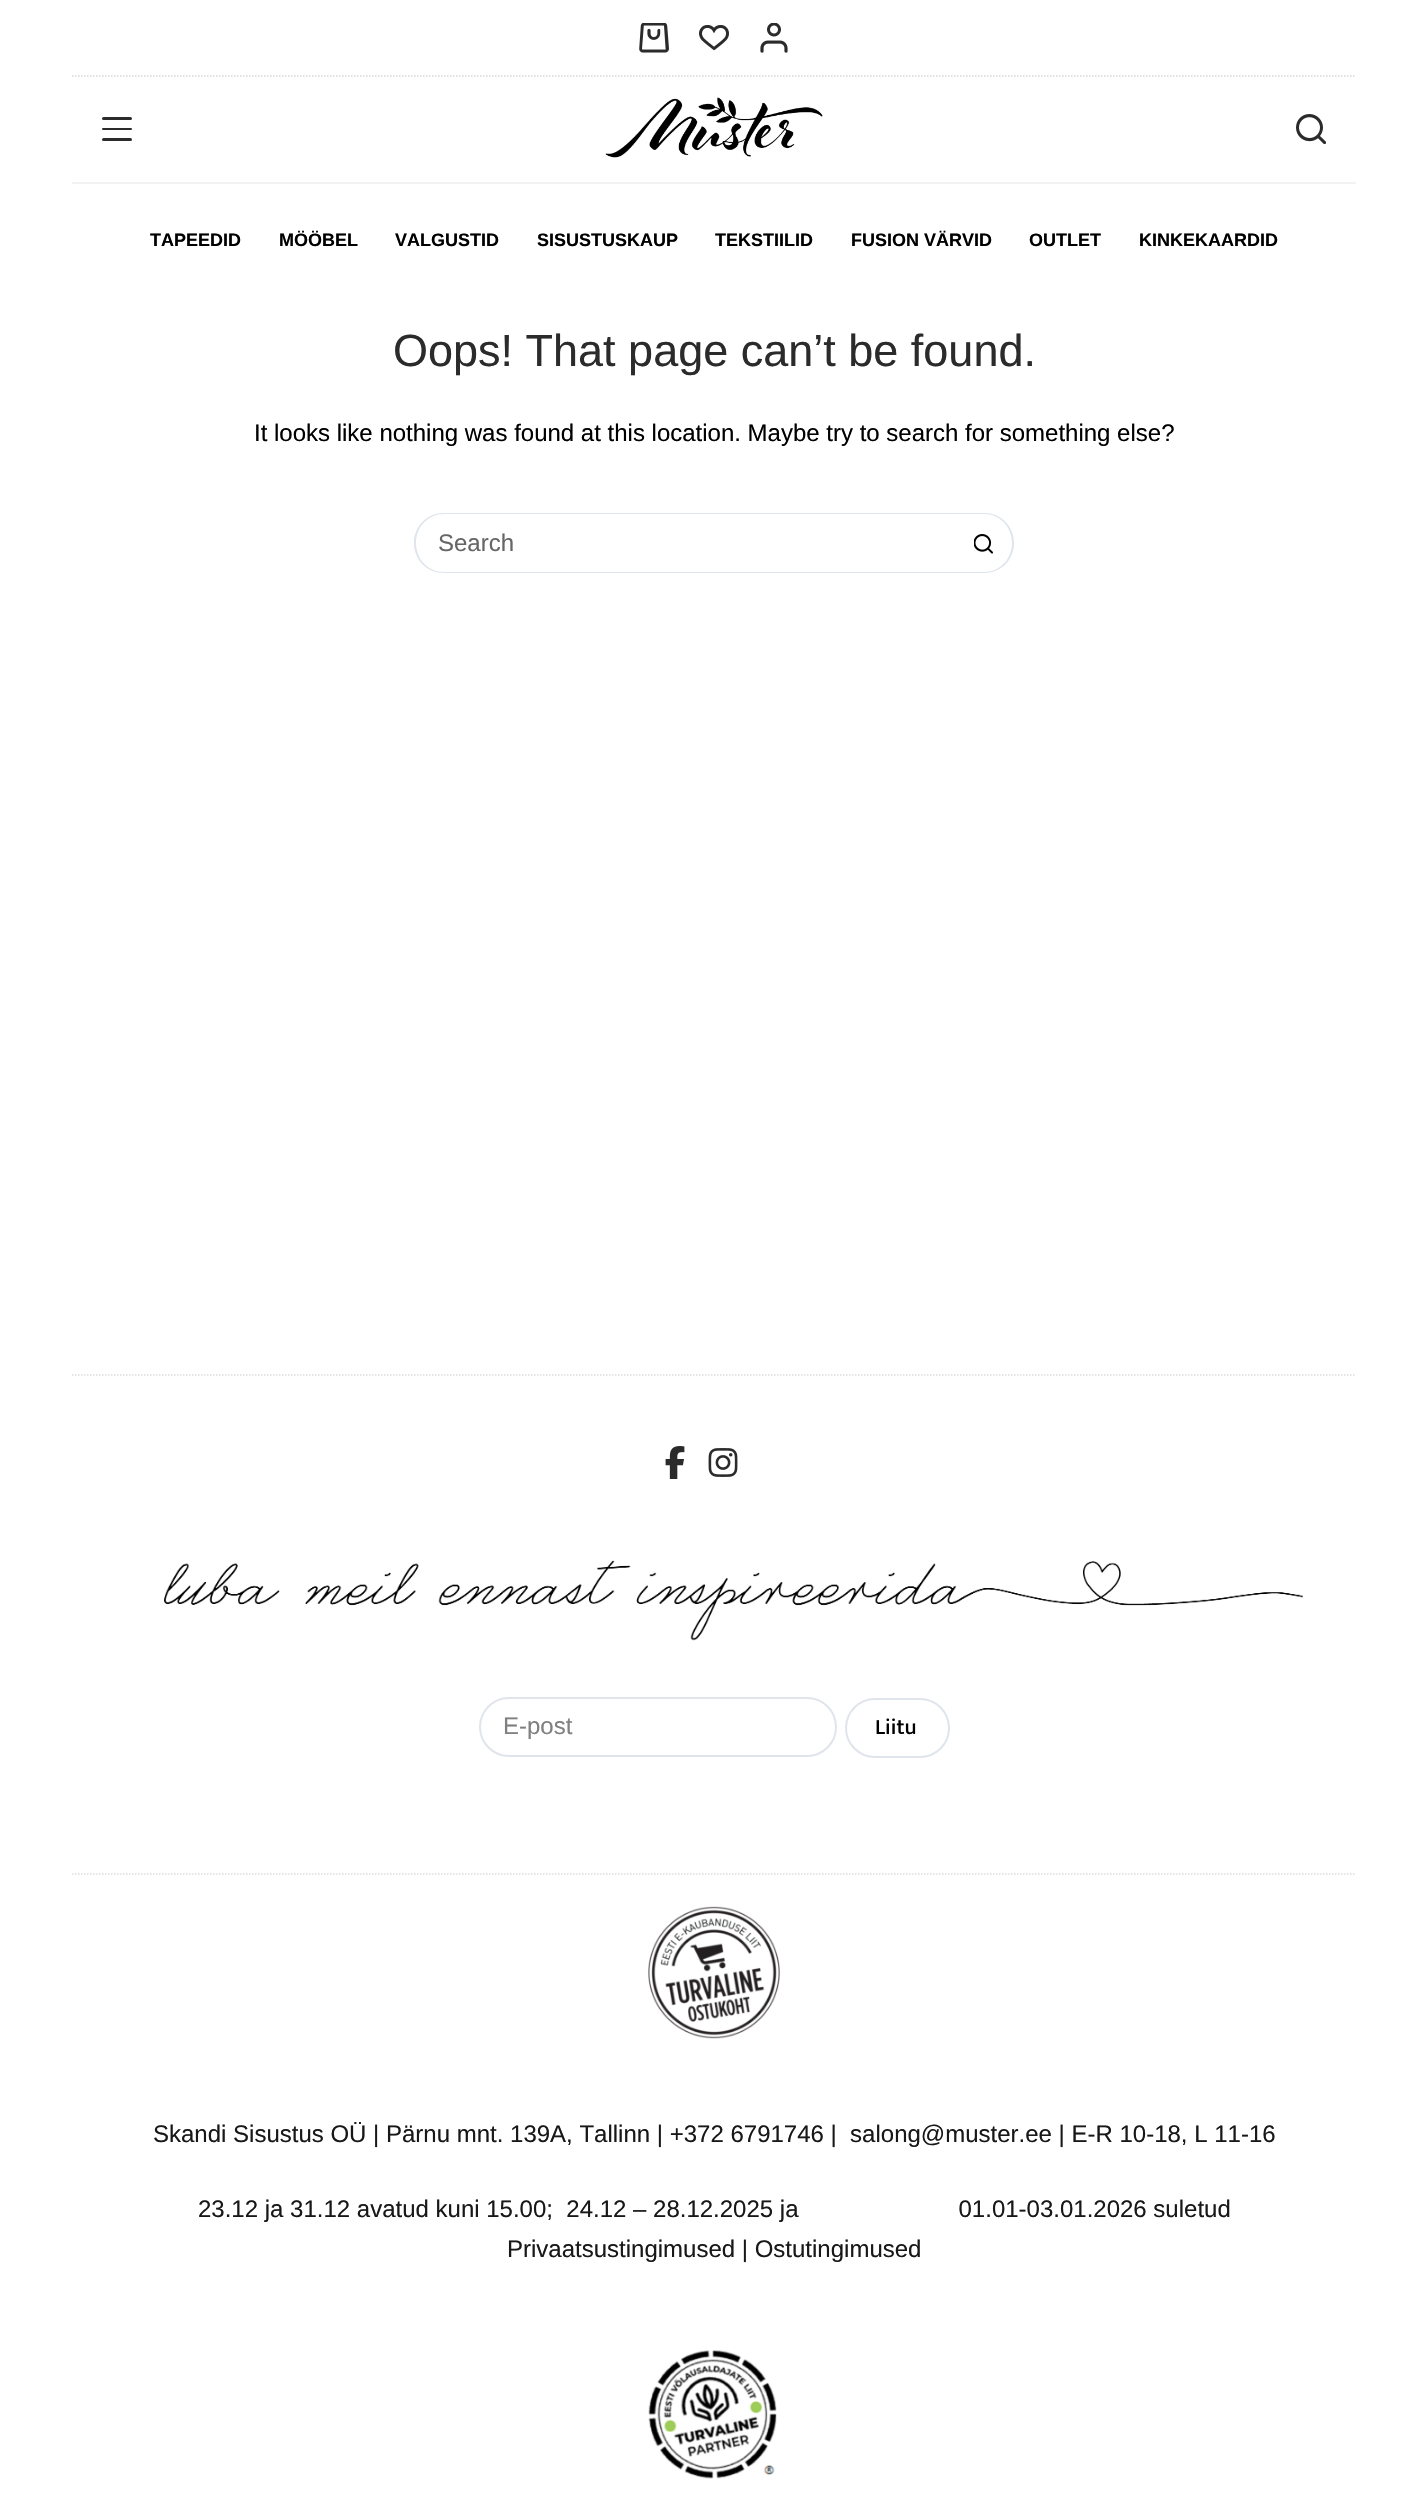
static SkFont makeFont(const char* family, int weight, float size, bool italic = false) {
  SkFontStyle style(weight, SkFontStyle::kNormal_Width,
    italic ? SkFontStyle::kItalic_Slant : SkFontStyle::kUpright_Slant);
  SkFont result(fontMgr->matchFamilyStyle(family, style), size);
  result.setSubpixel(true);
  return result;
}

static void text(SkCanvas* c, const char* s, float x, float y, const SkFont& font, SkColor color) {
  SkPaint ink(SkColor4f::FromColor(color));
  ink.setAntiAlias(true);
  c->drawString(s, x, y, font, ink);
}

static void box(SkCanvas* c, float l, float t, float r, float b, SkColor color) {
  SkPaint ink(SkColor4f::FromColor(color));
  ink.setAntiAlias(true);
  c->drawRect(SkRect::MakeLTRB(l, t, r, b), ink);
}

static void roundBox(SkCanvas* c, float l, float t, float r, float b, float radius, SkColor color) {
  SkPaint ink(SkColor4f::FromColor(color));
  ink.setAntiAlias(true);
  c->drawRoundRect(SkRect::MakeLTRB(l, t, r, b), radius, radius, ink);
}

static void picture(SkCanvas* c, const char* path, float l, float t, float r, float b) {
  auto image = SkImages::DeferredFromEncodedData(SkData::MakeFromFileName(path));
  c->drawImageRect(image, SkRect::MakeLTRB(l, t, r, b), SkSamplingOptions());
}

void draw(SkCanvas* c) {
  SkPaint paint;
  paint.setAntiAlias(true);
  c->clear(0xffffffff);
  paint.setStyle(SkPaint::kStroke_Style);
  paint.setStrokeWidth(1.5f);
  paint.setColor(0xffd5d8dc);
  paint.setPathEffect(SkDashPathEffect::Make({{1.5f, 1.5f}}, 0));
  c->drawPath(SkPathBuilder().moveTo(72, 76).lineTo(1356, 76).detach(), paint);
  paint.setPathEffect(nullptr);
  picture(c, "img_01.png", 639, 23, 669, 53);
  picture(c, "img_02.png", 699, 25, 729, 51);
  picture(c, "img_03.png", 760, 23, 788, 53);
  box(c, 72, 182, 1356, 184, 0xfff2f2f2);
  roundBox(c, 102, 117, 132, 120, 1.5f, 0xff2b2b2b);
  roundBox(c, 102, 128, 132, 130, 1, 0xff2b2b2b);
  roundBox(c, 102, 138, 132, 141, 1.5f, 0xff2b2b2b);
  picture(c, "img_04.png", 605, 97, 823, 158);
  picture(c, "img_05.png", 1296, 114, 1326, 144);
  SkFont face1 = makeFont("Liberation Sans", 700, 18);
  text(c, "TAPEEDID", 150, 246, face1, 0xff000000);
  text(c, "MÖÖBEL", 279, 246, face1, 0xff000000);
  text(c, "VALGUSTID", 395, 246, face1, 0xff000000);
  text(c, "SISUSTUSKAUP", 537, 246, face1, 0xff000000);
  text(c, "TEKSTIILID", 715, 246, face1, 0xff000000);
  text(c, "FUSION VÄRVID", 851, 246, face1, 0xff000000);
  text(c, "OUTLET", 1029, 246, face1, 0xff000000);
  text(c, "KINKEKAARDID", 1139, 246, face1, 0xff000000);
  SkFont face2 = makeFont("Liberation Sans", 400, 45);
  text(c, "Oops! That page can’t be found.", 393, 366, face2, 0xff2b2b2b);
  SkFont face3 = makeFont("Liberation Sans", 400, 24);
  text(c, "It looks like nothing was found at this location. Maybe try to search for something else?", 254, 441, face3, 0xff000000);
  paint.setStyle(SkPaint::kFill_Style);
  paint.setColor(0xffe0e5eb);
  c->drawPath(SkPathBuilder(SkPathFillType::kEvenOdd).moveTo(444, 513).lineTo(954, 513).lineTo(954, 573).lineTo(444, 573).cubicTo(427, 573, 414, 560, 414, 543).cubicTo(414, 526, 427, 513, 444, 513).close().moveTo(444, 514).lineTo(954, 514).lineTo(954, 572).lineTo(444, 572).cubicTo(428, 572, 416, 559, 416, 543).cubicTo(416, 527, 428, 514, 444, 514).close().detach(), paint);
  text(c, "Search", 438, 551, face3, 0xff666666);
  c->drawPath(SkPathBuilder(SkPathFillType::kEvenOdd).moveTo(954, 513).lineTo(984, 513).cubicTo(1001, 513, 1014, 526, 1014, 543).cubicTo(1014, 560, 1001, 573, 984, 573).lineTo(954, 573).close().moveTo(954, 514).lineTo(984, 514).cubicTo(1000, 514, 1012, 527, 1012, 543).cubicTo(1012, 559, 1000, 572, 984, 572).lineTo(954, 572).close().detach(), paint);
  picture(c, "img_06.png", 974, 534, 993, 554);
  paint.setStyle(SkPaint::kStroke_Style);
  paint.setStrokeWidth(2.2f);
  paint.setStrokeCap(SkPaint::kRound_Cap);
  paint.setColor(0xffffffff);
  c->drawPath(SkPathBuilder().moveTo(974, 536).cubicTo(978, 531, 985, 530.5f, 989.5f, 534.5f).detach(), paint);
  paint.setStrokeWidth(1.5f);
  paint.setStrokeCap(SkPaint::kButt_Cap);
  paint.setColor(0xffdddddd);
  paint.setPathEffect(SkDashPathEffect::Make({{1.5f, 1.5f}}, 0));
  c->drawPath(SkPathBuilder().moveTo(72, 1375).lineTo(1356, 1375).detach(), paint);
  paint.setPathEffect(nullptr);
  paint.setPathEffect(SkDashPathEffect::Make({{1.5f, 1.5f}}, 0));
  c->drawPath(SkPathBuilder().moveTo(72, 1874).lineTo(1356, 1874).detach(), paint);
  paint.setPathEffect(nullptr);
  picture(c, "img_07.png", 665, 1446, 685, 1479);
  picture(c, "img_08.png", 708, 1448, 738, 1477);
  picture(c, "img_09.png", 164, 1560, 1304, 1641);
  paint.setStrokeWidth(2);
  paint.setColor(0xffe0e5eb);
  c->drawRoundRect(SkRect::MakeLTRB(480, 1698, 836, 1756), 29, 29, paint);
  text(c, "E-post", 503, 1734, face3, 0xff808080);
  c->drawRoundRect(SkRect::MakeLTRB(846, 1699, 949, 1757), 29, 29, paint);
  SkFont face4 = makeFont("Mukta Vaani", 500, 22);
  text(c, "Liitu", 875, 1734, face4, 0xff000000);
  picture(c, "img_10.png", 648, 1906, 780, 2039);
  text(c, "Skandi Sisustus OÜ | Pärnu mnt. 139A, Tallinn | +372 6791746 |  salong@muster.ee | E-R 10-18, L 11-16", 153, 2142, face3, 0xff181818);
  text(c, "23.12 ja 31.12 avatud kuni 15.00;  24.12 – 28.12.2025 ja                        01.01-03.01.2026 suletud", 198, 2217, face3, 0xff181818);
  text(c, "Privaatsustingimused | Ostutingimused", 507, 2257, face3, 0xff181818);
  picture(c, "img_11.png", 648, 2350, 777, 2479);
}
